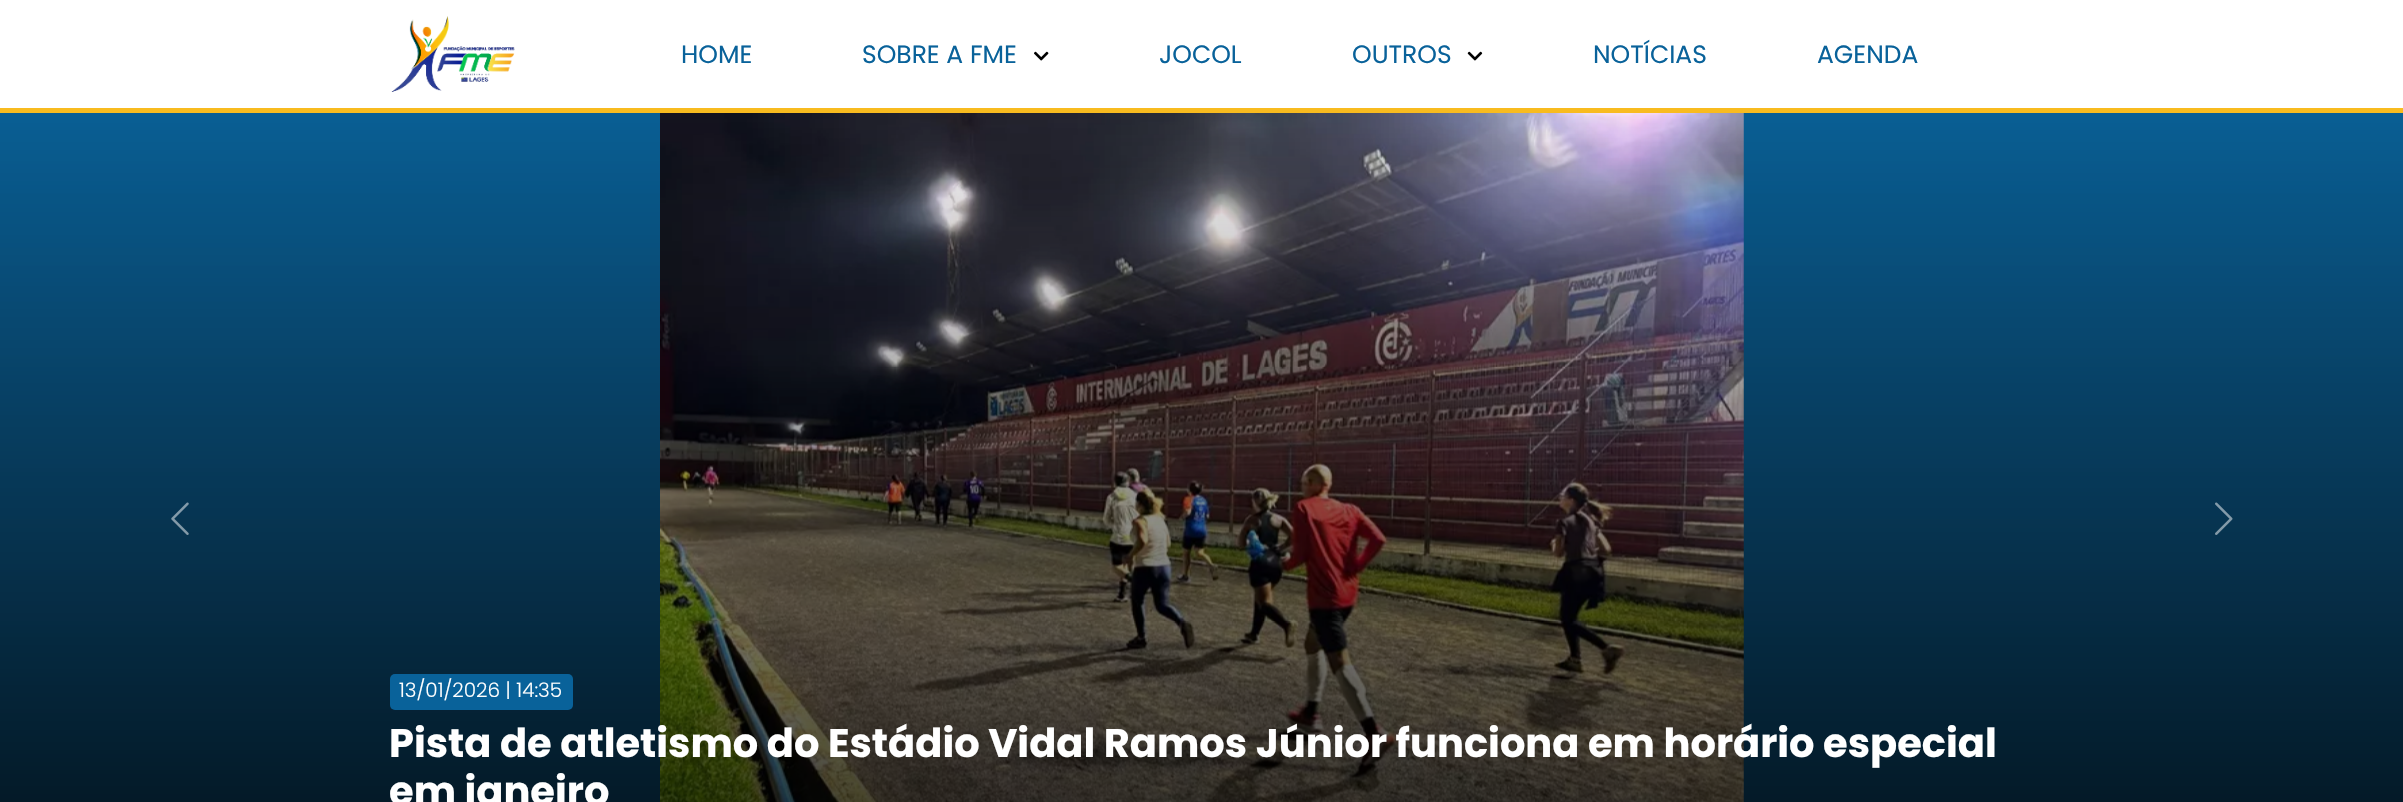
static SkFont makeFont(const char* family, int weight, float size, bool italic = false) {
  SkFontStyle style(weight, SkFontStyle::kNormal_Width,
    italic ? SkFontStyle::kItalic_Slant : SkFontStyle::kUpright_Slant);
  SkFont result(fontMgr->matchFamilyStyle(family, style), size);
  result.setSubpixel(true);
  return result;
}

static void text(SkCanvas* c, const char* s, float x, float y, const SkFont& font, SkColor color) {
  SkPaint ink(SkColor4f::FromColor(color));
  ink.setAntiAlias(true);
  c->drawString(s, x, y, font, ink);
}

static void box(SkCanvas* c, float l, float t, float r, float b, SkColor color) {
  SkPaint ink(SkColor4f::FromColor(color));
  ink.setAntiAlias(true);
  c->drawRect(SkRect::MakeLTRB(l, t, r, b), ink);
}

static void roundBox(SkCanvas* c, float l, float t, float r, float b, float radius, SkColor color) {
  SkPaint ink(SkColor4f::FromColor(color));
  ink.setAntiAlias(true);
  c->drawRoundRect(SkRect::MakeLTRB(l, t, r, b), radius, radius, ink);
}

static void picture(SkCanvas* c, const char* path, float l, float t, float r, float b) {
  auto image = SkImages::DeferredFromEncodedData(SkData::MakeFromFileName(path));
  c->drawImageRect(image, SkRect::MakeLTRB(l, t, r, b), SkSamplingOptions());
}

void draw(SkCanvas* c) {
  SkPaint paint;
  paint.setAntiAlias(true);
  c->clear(0xffffffff);
  box(c, 0, 108, 2403, 113, 0xfff8bb1f);
  picture(c, "img_01.png", 391, 16, 515, 92);
  SkFont face1 = makeFont("Poppins", 400, 25);
  text(c, "HOME", 681, 63, face1, 0xff09629a);
  text(c, "SOBRE A FME", 862, 63, face1, 0xff09629a);
  picture(c, "img_02.png", 1034, 51, 1049, 61);
  text(c, "JOCOL", 1159, 63, face1, 0xff09629a);
  text(c, "OUTROS", 1352, 63, face1, 0xff09629a);
  picture(c, "img_03.png", 1467, 51, 1483, 61);
  text(c, "NOTÍCIAS", 1593, 63, face1, 0xff09629a);
  text(c, "AGENDA", 1817, 63, face1, 0xff09629a);
  {
    const SkColor colors[] = {0xff0c5a8b, 0xff09629a};
    const float stops[] = {0, 1};
    const SkPoint ends[] = {{1202, 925}, {1202, 113}};
    paint.setShader(SkGradientShader::MakeLinear(ends, colors, stops, 2, SkTileMode::kClamp));
    paint.setAlpha(255);
  }
  c->drawRect(SkRect::MakeLTRB(0, 113, 2403, 802), paint);
  picture(c, "img_06.png", 660, 113, 1744, 802);
  {
    const SkColor colors[] = {0xd6000000, 0x4d000000, 0x0a000000};
    const float stops[] = {0, 0.68f, 1};
    const SkPoint ends[] = {{1202, 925}, {1202, 113}};
    paint.setShader(SkGradientShader::MakeLinear(ends, colors, stops, 3, SkTileMode::kClamp));
    paint.setAlpha(255);
  }
  c->drawRect(SkRect::MakeLTRB(0, 113, 2403, 802), paint);
  picture(c, "img_04.png", 171, 502, 189, 535);
  picture(c, "img_05.png", 2215, 502, 2233, 535);
  roundBox(c, 390, 674, 573, 710, 5, 0xff09629a);
  SkFont face2 = makeFont("Poppins", 300, 20);
  text(c, "13/01/2026 | 14:35", 399, 697, face2, 0xffffffff);
  SkFont face3 = makeFont("Poppins", 700, 40);
  text(c, "Pista de atletismo do Estádio Vidal Ramos Júnior funciona em horário especial", 389, 757, face3, 0xffffffff);
  text(c, "em janeiro", 389, 805, face3, 0xffffffff);
}
